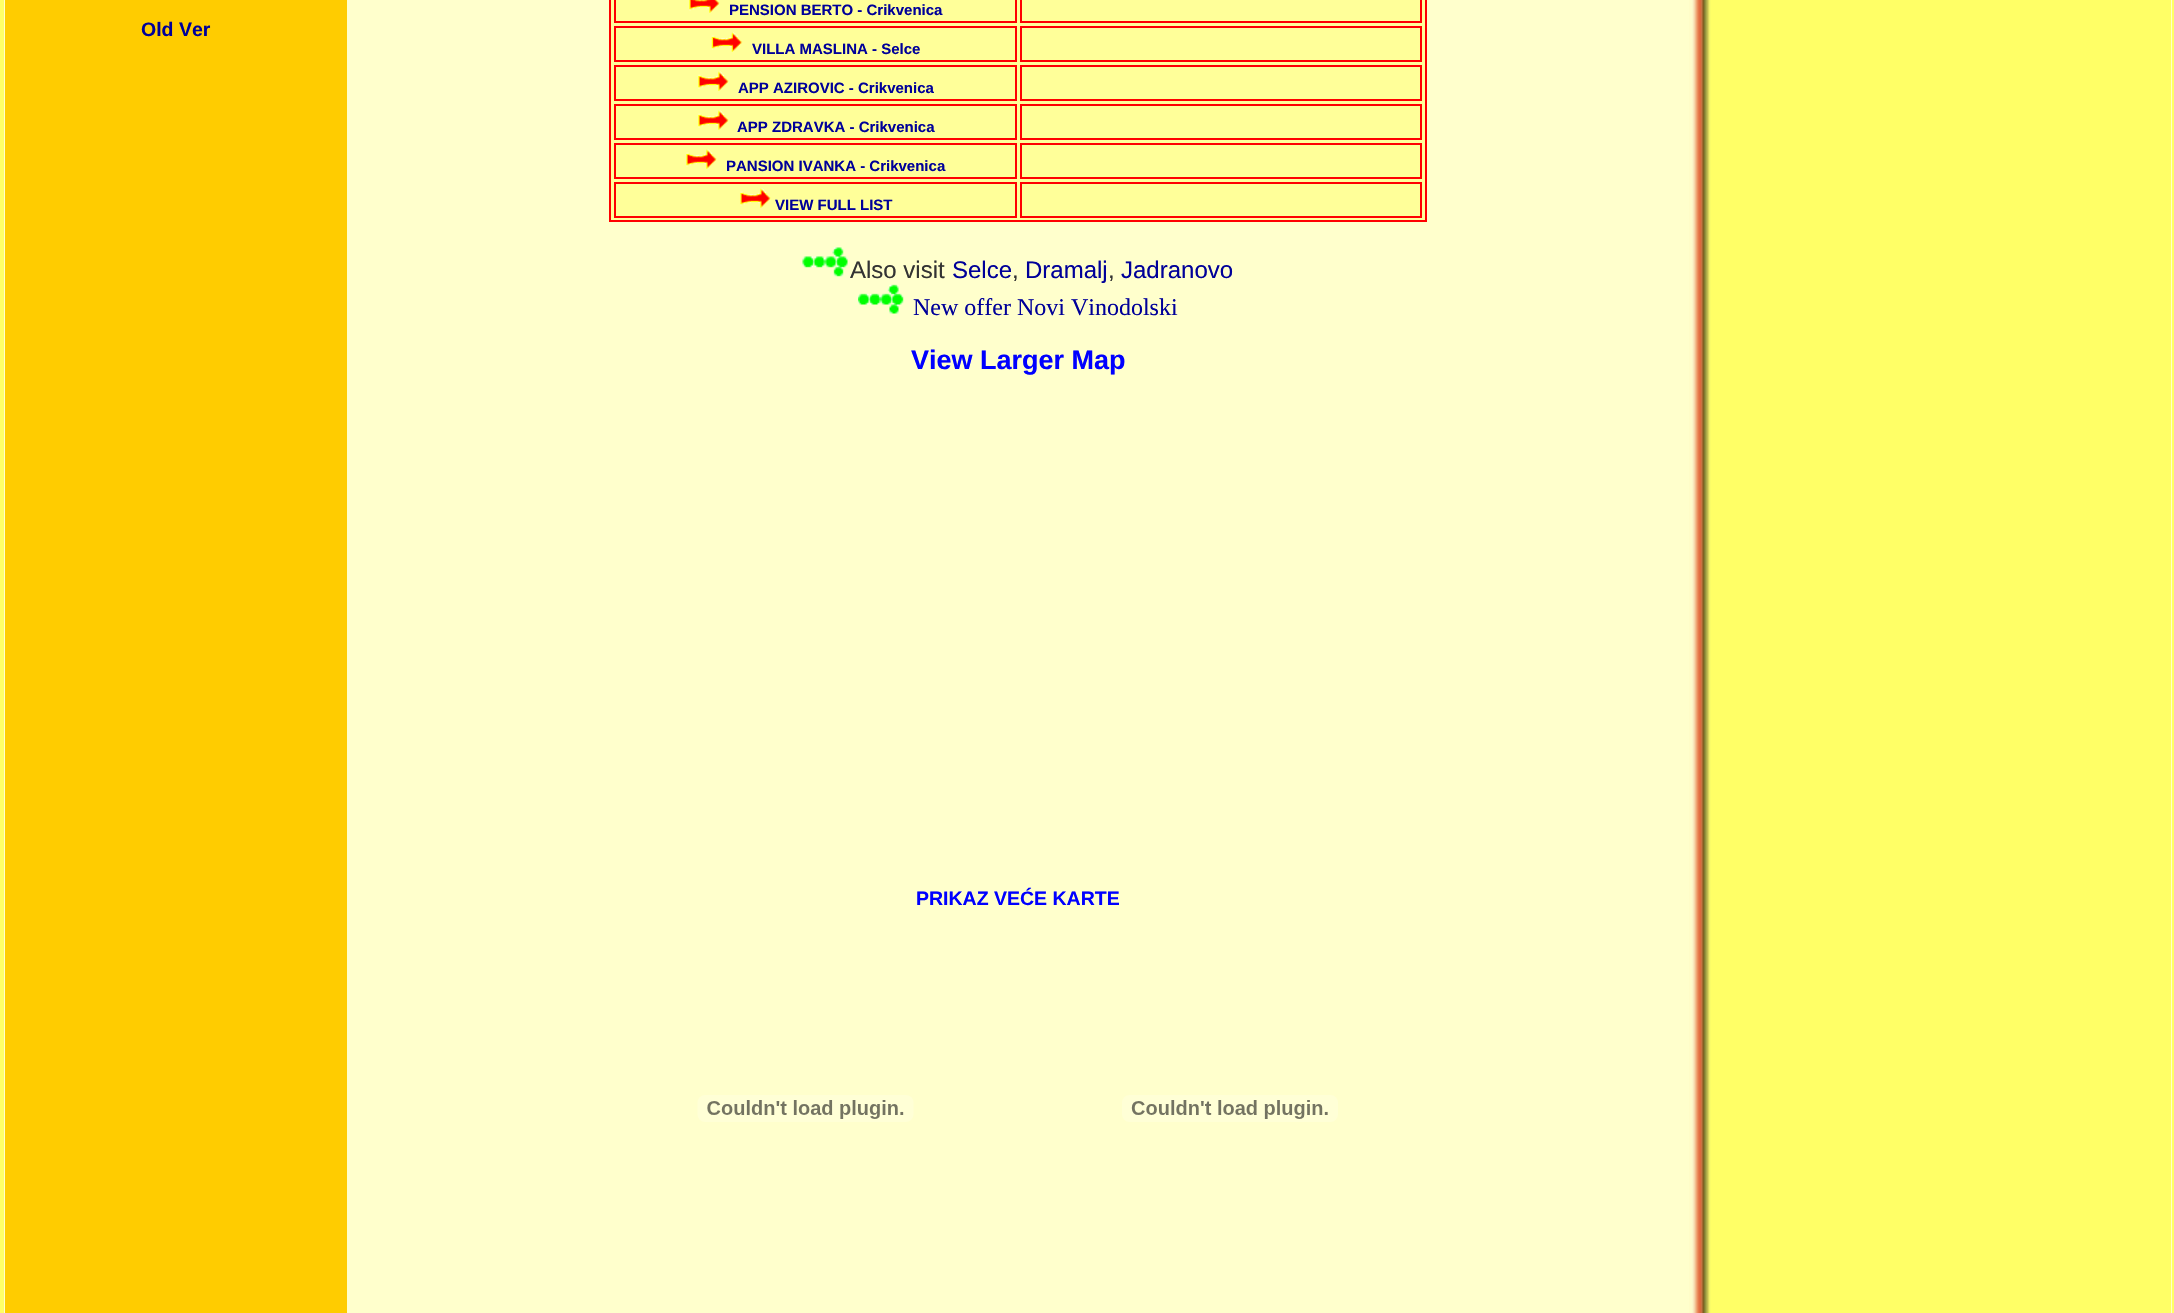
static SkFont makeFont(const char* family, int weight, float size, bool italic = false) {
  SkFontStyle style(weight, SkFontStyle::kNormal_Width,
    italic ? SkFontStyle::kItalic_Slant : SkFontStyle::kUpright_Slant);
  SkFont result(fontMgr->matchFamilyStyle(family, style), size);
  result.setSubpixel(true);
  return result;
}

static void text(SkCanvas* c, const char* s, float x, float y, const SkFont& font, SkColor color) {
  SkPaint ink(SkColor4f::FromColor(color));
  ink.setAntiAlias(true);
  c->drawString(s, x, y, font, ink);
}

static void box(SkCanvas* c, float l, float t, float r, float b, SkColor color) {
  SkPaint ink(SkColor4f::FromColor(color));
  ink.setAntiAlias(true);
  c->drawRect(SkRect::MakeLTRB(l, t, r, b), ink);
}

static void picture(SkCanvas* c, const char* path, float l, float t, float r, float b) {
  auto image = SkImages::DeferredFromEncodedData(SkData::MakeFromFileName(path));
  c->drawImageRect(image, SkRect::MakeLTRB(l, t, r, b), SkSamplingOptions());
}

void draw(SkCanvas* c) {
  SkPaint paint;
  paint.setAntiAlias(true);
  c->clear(0xffffffff);
  paint.setStyle(SkPaint::kStroke_Style);
  paint.setStrokeWidth(2);
  paint.setColor(0xffffff66);
  c->drawRect(SkRect::MakeLTRB(1, -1, 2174, 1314), paint);
  paint.setStyle(SkPaint::kFill_Style);
  paint.setColor(0xffffffcc);
  c->drawRect(SkRect::MakeLTRB(3, -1, 2173, 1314), paint);
  paint.setStyle(SkPaint::kStroke_Style);
  paint.setColor(0xffffff66);
  c->drawRect(SkRect::MakeLTRB(3, -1, 2173, 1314), paint);
  box(c, 5, 0, 347, 1313, 0xffffcc00);
  SkFont face1 = makeFont("Liberation Sans", 700, 19.5f);
  text(c, "Old Ver", 141, 36, face1, 0xff000099);
  paint.setStyle(SkPaint::kFill_Style);
  paint.setColor(0xffffff99);
  c->drawRect(SkRect::MakeLTRB(610, -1, 1426, 221), paint);
  paint.setStyle(SkPaint::kStroke_Style);
  paint.setColor(0xffff0000);
  c->drawRect(SkRect::MakeLTRB(610, -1, 1426, 221), paint);
  c->drawRect(SkRect::MakeLTRB(615, -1, 1016, 22), paint);
  picture(c, "img_01.png", 689, 0, 720, 13);
  SkFont face2 = makeFont("Liberation Sans", 700, 15);
  text(c, "PENSION BERTO - Crikvenica", 729, 15, face2, 0xff000099);
  c->drawRect(SkRect::MakeLTRB(1021, -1, 1421, 22), paint);
  c->drawRect(SkRect::MakeLTRB(615, 27, 1016, 61), paint);
  picture(c, "img_02.png", 711, 32, 743, 52);
  text(c, "VILLA MASLINA - Selce", 752, 54, face2, 0xff000099);
  c->drawRect(SkRect::MakeLTRB(1021, 27, 1421, 61), paint);
  c->drawRect(SkRect::MakeLTRB(615, 66, 1016, 100), paint);
  picture(c, "img_03.png", 698, 71, 729, 91);
  text(c, "APP AZIROVIC - Crikvenica", 738, 93, face2, 0xff000099);
  c->drawRect(SkRect::MakeLTRB(1021, 66, 1421, 100), paint);
  c->drawRect(SkRect::MakeLTRB(615, 105, 1016, 139), paint);
  picture(c, "img_04.png", 698, 110, 729, 130);
  text(c, "APP ZDRAVKA - Crikvenica", 737, 132, face2, 0xff000099);
  c->drawRect(SkRect::MakeLTRB(1021, 105, 1421, 139), paint);
  c->drawRect(SkRect::MakeLTRB(615, 144, 1016, 178), paint);
  picture(c, "img_04.png", 686, 149, 717, 169);
  text(c, "PANSION IVANKA - Crikvenica", 726, 171, face2, 0xff000099);
  c->drawRect(SkRect::MakeLTRB(1021, 144, 1421, 178), paint);
  c->drawRect(SkRect::MakeLTRB(615, 183, 1016, 217), paint);
  picture(c, "img_04.png", 740, 188, 771, 208);
  text(c, "VIEW FULL LIST", 775, 210, face2, 0xff000099);
  c->drawRect(SkRect::MakeLTRB(1021, 183, 1421, 217), paint);
  picture(c, "img_05.png", 802, 247, 848, 277);
  SkFont face3 = makeFont("Liberation Sans", 400, 24);
  text(c, "Also visit", 850, 278, face3, 0xff333333);
  text(c, "Selce", 952, 278, face3, 0xff000099);
  text(c, ",", 1012, 278, face3, 0xff333333);
  text(c, "Dramalj", 1025, 278, face3, 0xff000099);
  text(c, ",", 1108, 278, face3, 0xff333333);
  text(c, "Jadranovo", 1121, 278, face3, 0xff000099);
  picture(c, "img_06.png", 858, 284, 904, 314);
  SkFont face4 = makeFont("Liberation Serif", 400, 24);
  text(c, "New offer Novi Vinodolski", 913, 315, face4, 0xff000099);
  SkFont face5 = makeFont("Liberation Sans", 700, 27);
  text(c, "View Larger Map", 911, 369, face5, 0xff0000ff);
  text(c, "PRIKAZ VEĆE KARTE", 916, 905, face1, 0xff0000ff);
  picture(c, "img_07.png", 697, 1095, 914, 1122);
  picture(c, "img_08.png", 1122, 1095, 1338, 1122);
  box(c, 1711, 0, 2171, 1313, 0xffffff66);
  picture(c, "img_09.png", 1689, 0, 1711, 1313);
}
